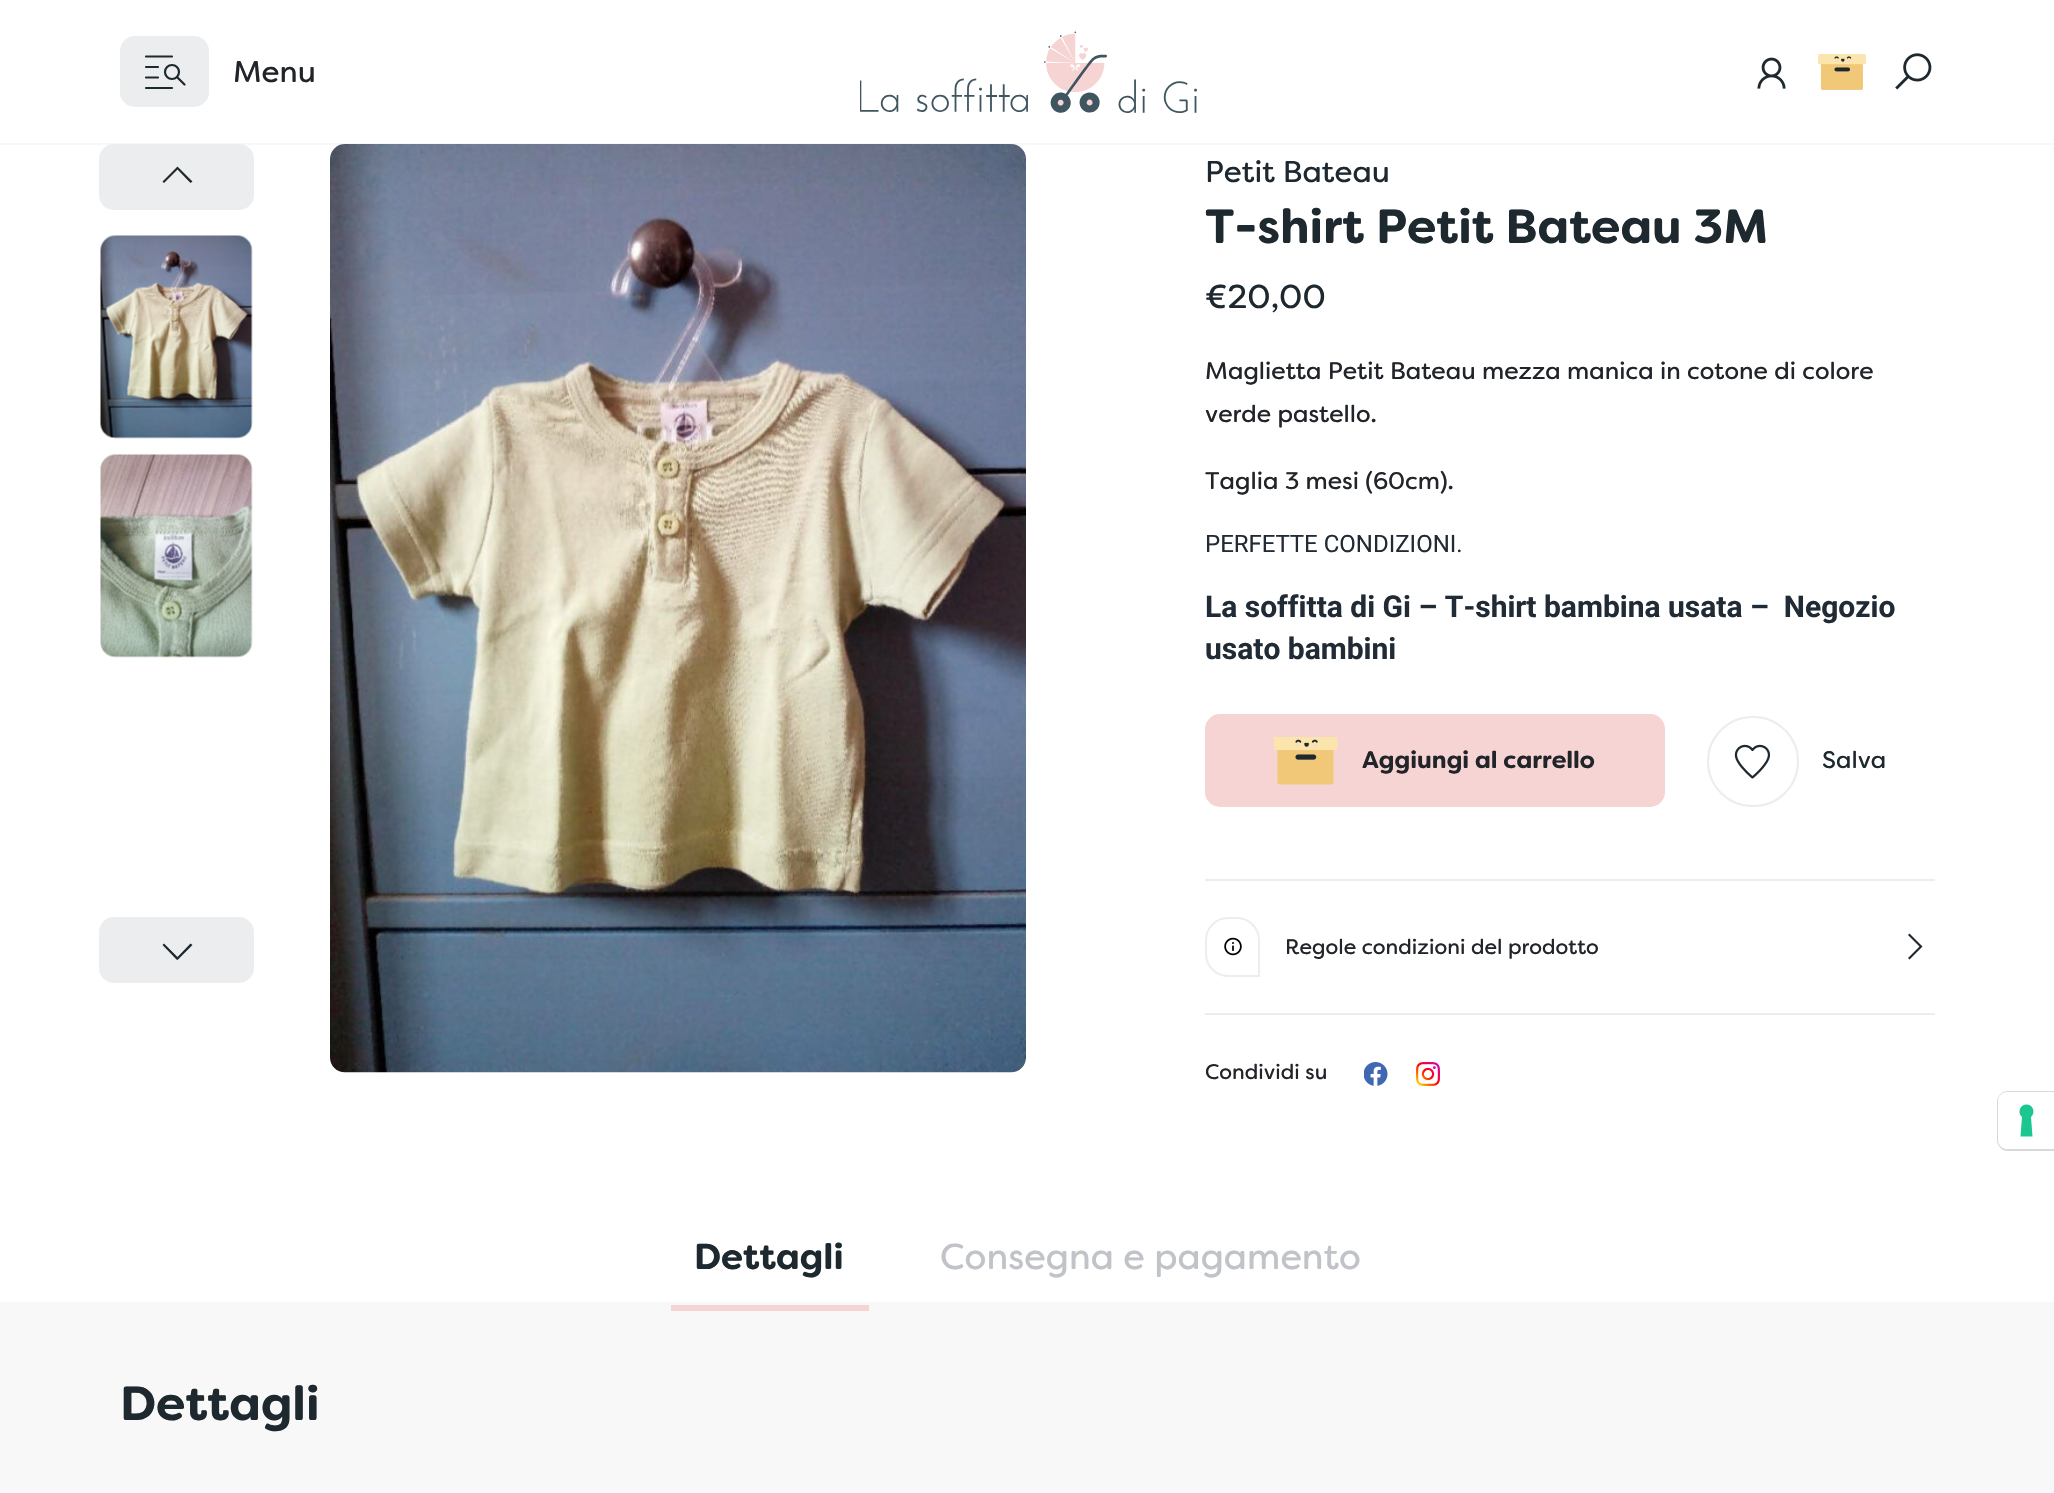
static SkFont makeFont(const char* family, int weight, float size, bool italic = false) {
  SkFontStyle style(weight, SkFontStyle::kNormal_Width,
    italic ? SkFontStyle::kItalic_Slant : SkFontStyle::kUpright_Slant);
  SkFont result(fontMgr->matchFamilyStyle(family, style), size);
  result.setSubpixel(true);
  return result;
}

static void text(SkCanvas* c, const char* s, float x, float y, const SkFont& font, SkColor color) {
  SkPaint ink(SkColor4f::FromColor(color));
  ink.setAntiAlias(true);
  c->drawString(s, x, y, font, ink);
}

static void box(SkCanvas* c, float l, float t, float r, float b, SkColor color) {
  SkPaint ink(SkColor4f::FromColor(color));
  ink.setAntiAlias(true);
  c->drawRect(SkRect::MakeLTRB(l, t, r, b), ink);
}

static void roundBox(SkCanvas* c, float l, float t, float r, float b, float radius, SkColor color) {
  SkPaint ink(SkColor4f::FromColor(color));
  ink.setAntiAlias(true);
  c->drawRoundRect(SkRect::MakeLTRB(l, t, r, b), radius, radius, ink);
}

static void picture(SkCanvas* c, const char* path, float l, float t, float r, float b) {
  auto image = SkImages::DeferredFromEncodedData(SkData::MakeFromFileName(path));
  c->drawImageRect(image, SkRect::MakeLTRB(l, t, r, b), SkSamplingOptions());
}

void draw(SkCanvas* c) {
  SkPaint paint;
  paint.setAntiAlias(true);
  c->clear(0xffffffff);
  roundBox(c, 120, 36, 209, 107, 15, 0xffecedee);
  paint.setStyle(SkPaint::kStroke_Style);
  paint.setStrokeWidth(2.2f);
  paint.setStrokeCap(SkPaint::kRound_Cap);
  paint.setStrokeJoin(SkPaint::kRound_Join);
  paint.setColor(0xff1d282f);
  c->drawPath(SkPathBuilder().moveTo(184.5f, 84.5f).lineTo(177, 77).moveTo(158, 67).lineTo(146, 67).moveTo(158, 77.5f).lineTo(146, 77.5f).moveTo(172, 88).lineTo(146, 88).moveTo(172, 56.5f).lineTo(146, 56.5f).detach(), paint);
  paint.setStrokeCap(SkPaint::kButt_Cap);
  paint.setStrokeJoin(SkPaint::kMiter_Join);
  c->drawCircle(172, 72, 7, paint);
  SkFont face1 = makeFont("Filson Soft", 400, 30);
  text(c, "Menu", 233, 82, face1, 0xff212529);
  picture(c, "img_01.png", 860, 31, 1197, 113);
  picture(c, "img_02.png", 1757, 57, 1786, 89);
  picture(c, "img_03.png", 1818, 54, 1866, 90);
  picture(c, "img_04.png", 1895, 53, 1932, 90);
  box(c, 0, 143, 2054, 145, 0xfff8f8f8);
  paint.setStyle(SkPaint::kFill_Style);
  paint.setColor(0xffecedee);
  c->drawRoundRect(SkRect::MakeLTRB(100, 145, 253, 209), 14, 14, paint);
  paint.setStyle(SkPaint::kStroke_Style);
  paint.setStrokeWidth(2);
  c->drawRoundRect(SkRect::MakeLTRB(100, 145, 253, 209), 14, 14, paint);
  paint.setStyle(SkPaint::kFill_Style);
  paint.setColor(0xff1d282f);
  c->drawPath(SkPathBuilder().moveTo(190.5f, 183).lineTo(192.5f, 181.5f).lineTo(177.5f, 166.5f).lineTo(162.5f, 181.5f).lineTo(164, 183).lineTo(177.5f, 169.5f).close().detach(), paint);
  picture(c, "img_05.png", 100, 235, 253, 439);
  picture(c, "img_06.png", 100, 454, 253, 658);
  paint.setColor(0xffecedee);
  c->drawRoundRect(SkRect::MakeLTRB(100, 918, 253, 982), 14, 14, paint);
  paint.setStyle(SkPaint::kStroke_Style);
  c->drawRoundRect(SkRect::MakeLTRB(100, 918, 253, 982), 14, 14, paint);
  paint.setStyle(SkPaint::kFill_Style);
  paint.setColor(0xff1d282f);
  c->drawPath(SkPathBuilder().moveTo(177.5f, 960).lineTo(192.5f, 945).lineTo(190.5f, 943.5f).lineTo(177.5f, 957).lineTo(164, 943.5f).lineTo(162.5f, 945).lineTo(176.5f, 959.5f).close().detach(), paint);
  picture(c, "img_07.png", 330, 144, 1026, 1073);
  text(c, "Petit Bateau", 1205, 182, face1, 0xff1d282f);
  SkFont face2 = makeFont("Filson Soft", 700, 48);
  text(c, "T-shirt Petit Bateau 3M", 1205, 243, face2, 0xff1d282f);
  SkFont face3 = makeFont("Filson Soft", 400, 33);
  text(c, "€20,00", 1205, 308, face3, 0xff1d282f);
  SkFont face4 = makeFont("Filson Soft", 400, 24);
  text(c, "Maglietta Petit Bateau mezza manica in cotone di colore", 1205, 379, face4, 0xff212529);
  text(c, "verde pastello.", 1205, 422, face4, 0xff212529);
  text(c, "Taglia 3 mesi (60cm).", 1205, 489, face4, 0xff212529);
  SkFont face5 = makeFont("Roboto", 400, 24);
  text(c, "PERFETTE CONDIZIONI.", 1205, 552, face5, 0xff212b36);
  SkFont face6 = makeFont("Roboto", 700, 30);
  text(c, "La soffitta di Gi – T-shirt bambina usata –  Negozio", 1205, 617, face6, 0xff212b36);
  text(c, "usato bambini", 1205, 659, face6, 0xff212b36);
  paint.setColor(0xfff6d4d3);
  c->drawRoundRect(SkRect::MakeLTRB(1206, 715, 1664, 806), 14, 14, paint);
  paint.setStyle(SkPaint::kStroke_Style);
  c->drawRoundRect(SkRect::MakeLTRB(1206, 715, 1664, 806), 14, 14, paint);
  picture(c, "img_08.png", 1274, 737, 1338, 785);
  SkFont face7 = makeFont("Filson Soft", 700, 24);
  text(c, "Aggiungi al carrello", 1362, 768, face7, 0xff212529);
  paint.setColor(0xffecedee);
  c->drawRoundRect(SkRect::MakeLTRB(1708, 717, 1798, 806), 44.5f, 44.5f, paint);
  picture(c, "img_09.png", 1734, 744, 1771, 779);
  text(c, "Salva", 1822, 768, face4, 0xff1d282f);
  box(c, 1205, 879, 1935, 881, 0xffecedee);
  c->drawPath(SkPathBuilder().moveTo(1228, 918).lineTo(1237, 918).cubicTo(1249, 918, 1259, 928, 1259, 940).lineTo(1259, 976).lineTo(1228, 976).cubicTo(1216, 976, 1206, 966, 1206, 954).lineTo(1206, 940).cubicTo(1206, 928, 1216, 918, 1228, 918).close().detach(), paint);
  picture(c, "img_10.png", 1224, 937, 1242, 956);
  SkFont face8 = makeFont("Filson Soft", 400, 21);
  text(c, "Regole condizioni del prodotto", 1285, 954, face8, 0xff212529);
  paint.setStyle(SkPaint::kFill_Style);
  paint.setColor(0xff1d282f);
  c->drawPath(SkPathBuilder().moveTo(1909.5f, 959.5f).lineTo(1922.5f, 946.5f).lineTo(1909.5f, 933.5f).lineTo(1908, 935).lineTo(1919.5f, 946.5f).lineTo(1908, 958).close().detach(), paint);
  box(c, 1205, 1013, 1935, 1015, 0xffecedee);
  text(c, "Condividi su", 1205, 1079, face8, 0xff212529);
  picture(c, "img_11.png", 1364, 1062, 1388, 1086);
  picture(c, "img_12.png", 1416, 1062, 1440, 1086);
  SkFont face9 = makeFont("Filson Soft", 700, 36);
  text(c, "Dettagli", 694, 1269, face9, 0xff1d282f);
  box(c, 0, 1302, 2054, 1493, 0xfff8f8f8);
  box(c, 671, 1305, 869, 1311, 0xfff6d4d3);
  SkFont face10 = makeFont("Filson Soft", 400, 36);
  text(c, "Consegna e pagamento", 940, 1269, face10, 0xffc0c3c7);
  text(c, "Dettagli", 120, 1420, face2, 0xff1d282f);
  paint.setStyle(SkPaint::kStroke_Style);
  paint.setColor(0xffd9d9d9);
  c->drawPath(SkPathBuilder().moveTo(2008, 1092).lineTo(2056, 1092).lineTo(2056, 1150).lineTo(2008, 1150).cubicTo(2002.5f, 1150, 1998, 1145.5f, 1998, 1140).lineTo(1998, 1102).cubicTo(1998, 1096.5f, 2002.5f, 1092, 2008, 1092).close().detach(), paint);
  paint.setStyle(SkPaint::kFill_Style);
  paint.setColor(0xffffffff);
  c->drawPath(SkPathBuilder().moveTo(2007, 1092).lineTo(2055, 1092).lineTo(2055, 1149).lineTo(2007, 1149).cubicTo(2002, 1149, 1998, 1145, 1998, 1140).lineTo(1998, 1101).cubicTo(1998, 1096, 2002, 1092, 2007, 1092).close().detach(), paint);
  paint.setColor(0xff1cc691);
  c->drawPath(SkPathBuilder(SkPathFillType::kEvenOdd).moveTo(2026.5f, 1104.5f).cubicTo(2033, 1104.5f, 2036, 1112.5f, 2031, 1117).lineTo(2032.5f, 1136.5f).lineTo(2020.5f, 1136.5f).lineTo(2022, 1117).cubicTo(2017, 1112.5f, 2020, 1104.5f, 2026.5f, 1104.5f).close().detach(), paint);
}
